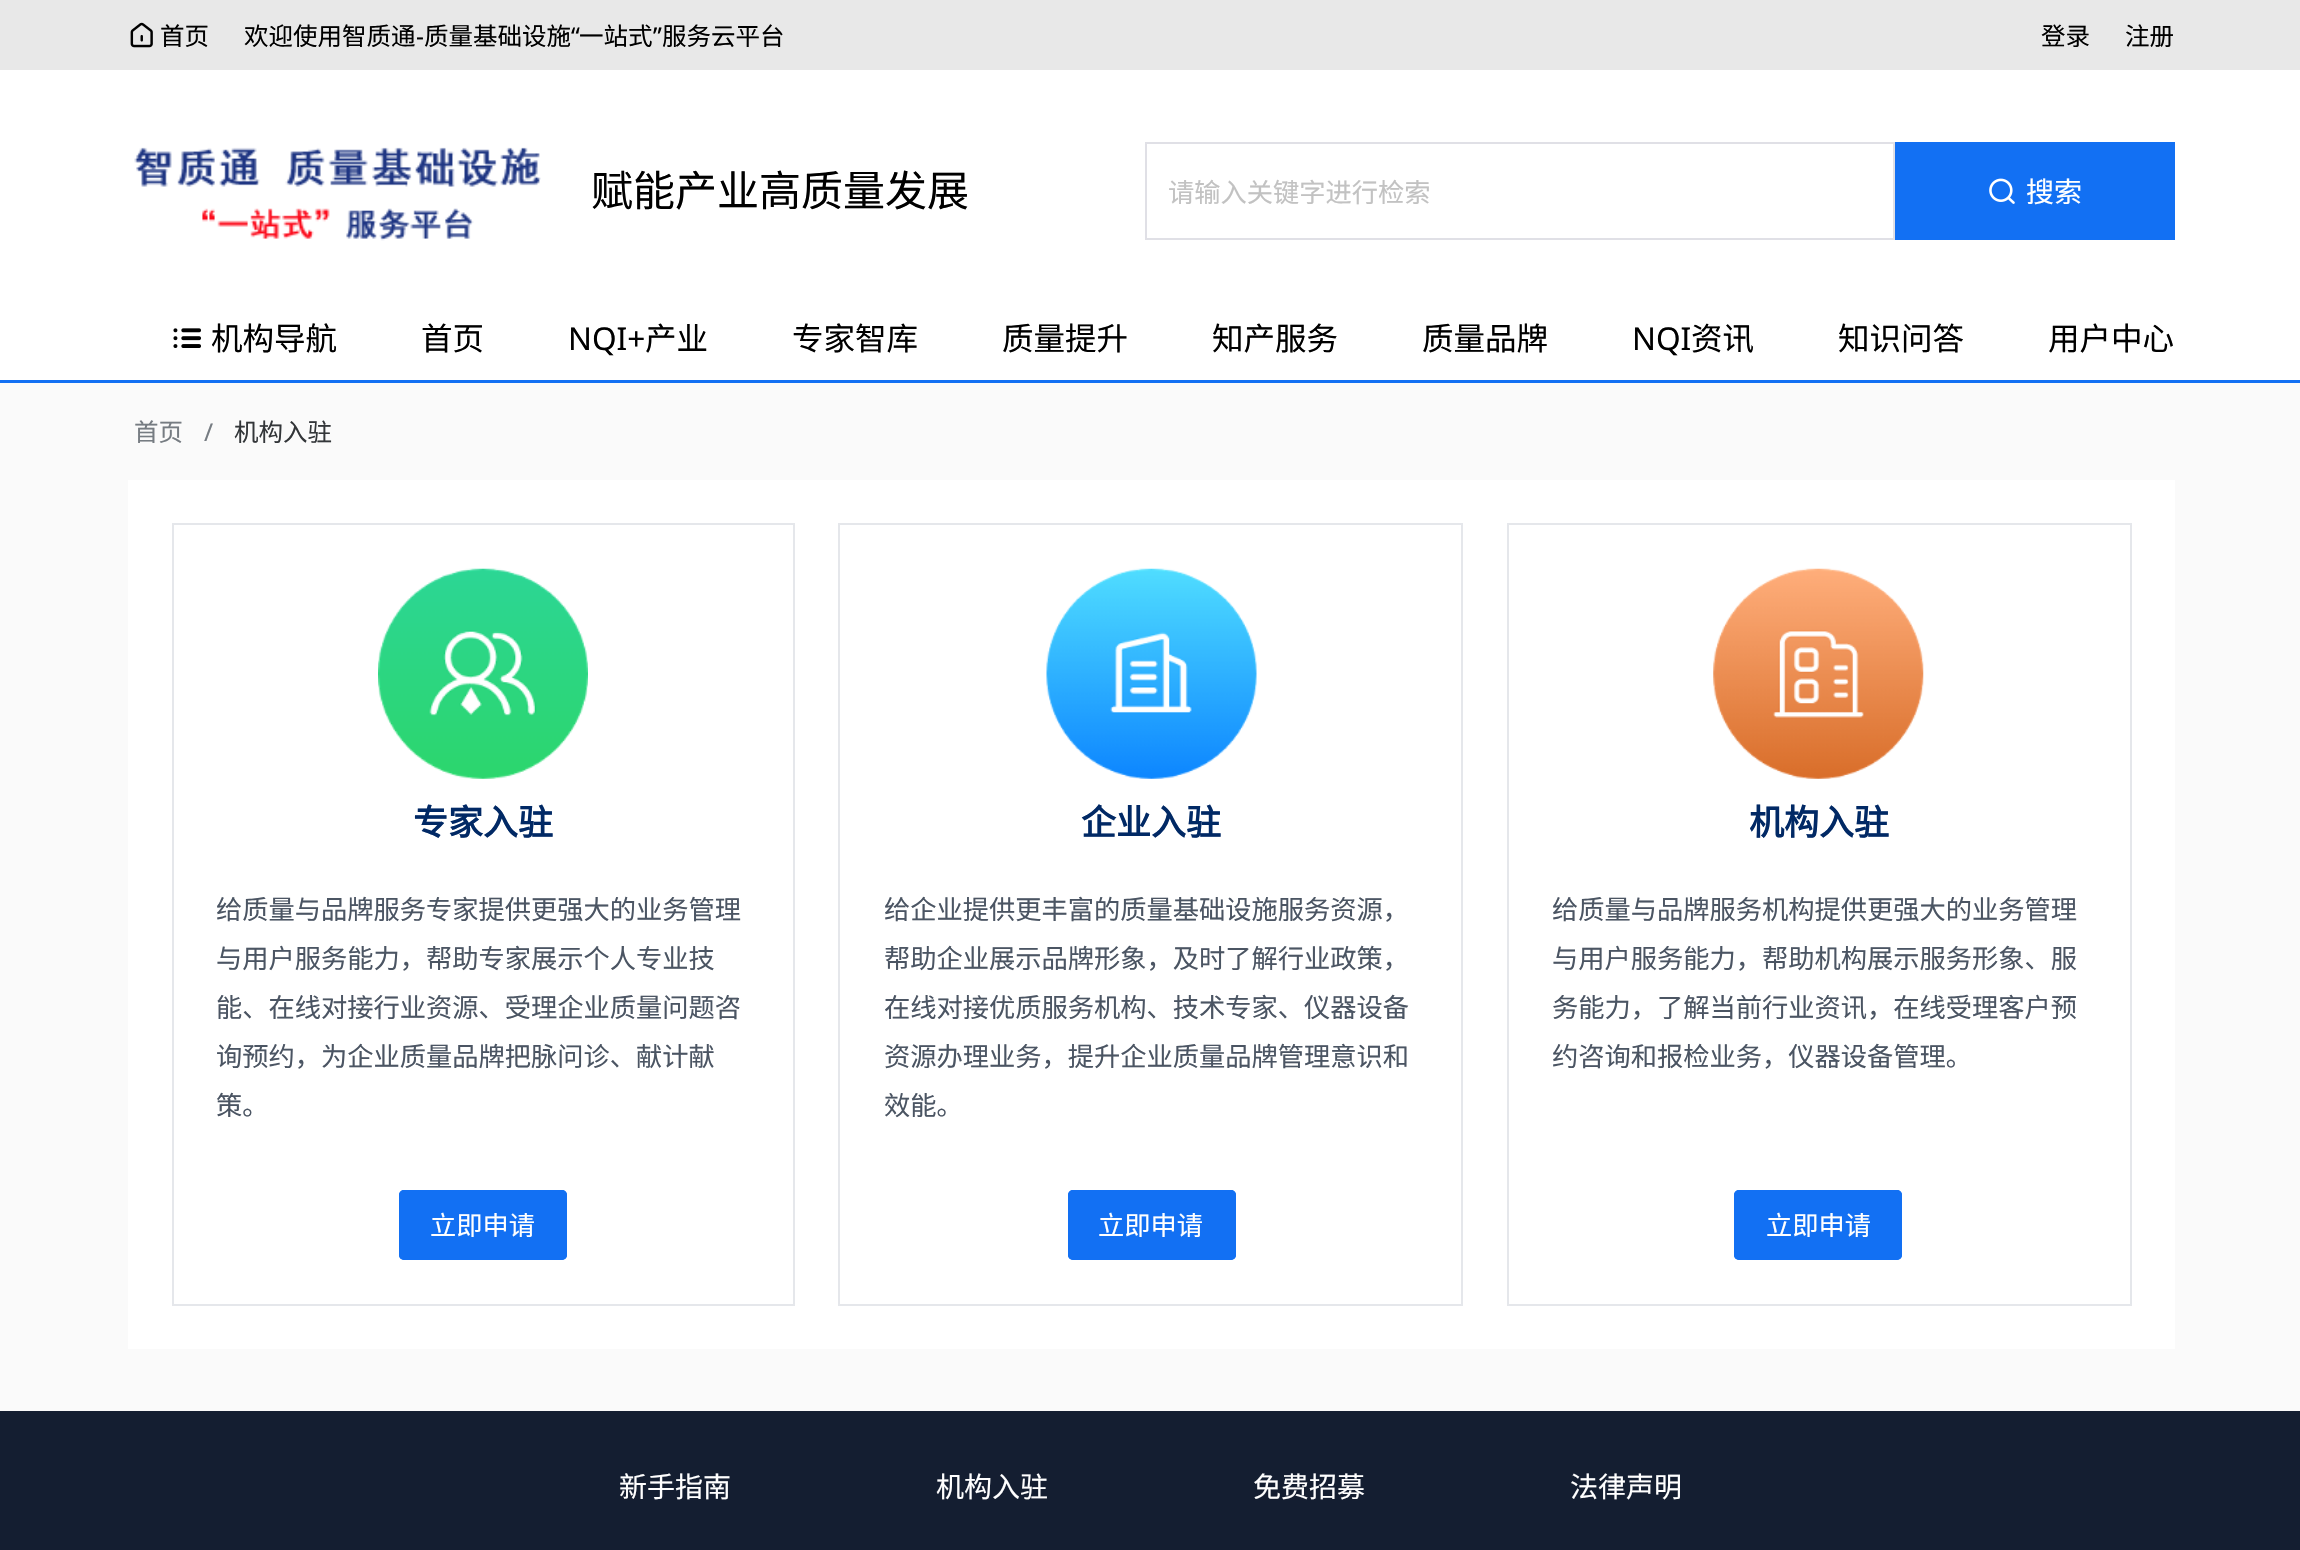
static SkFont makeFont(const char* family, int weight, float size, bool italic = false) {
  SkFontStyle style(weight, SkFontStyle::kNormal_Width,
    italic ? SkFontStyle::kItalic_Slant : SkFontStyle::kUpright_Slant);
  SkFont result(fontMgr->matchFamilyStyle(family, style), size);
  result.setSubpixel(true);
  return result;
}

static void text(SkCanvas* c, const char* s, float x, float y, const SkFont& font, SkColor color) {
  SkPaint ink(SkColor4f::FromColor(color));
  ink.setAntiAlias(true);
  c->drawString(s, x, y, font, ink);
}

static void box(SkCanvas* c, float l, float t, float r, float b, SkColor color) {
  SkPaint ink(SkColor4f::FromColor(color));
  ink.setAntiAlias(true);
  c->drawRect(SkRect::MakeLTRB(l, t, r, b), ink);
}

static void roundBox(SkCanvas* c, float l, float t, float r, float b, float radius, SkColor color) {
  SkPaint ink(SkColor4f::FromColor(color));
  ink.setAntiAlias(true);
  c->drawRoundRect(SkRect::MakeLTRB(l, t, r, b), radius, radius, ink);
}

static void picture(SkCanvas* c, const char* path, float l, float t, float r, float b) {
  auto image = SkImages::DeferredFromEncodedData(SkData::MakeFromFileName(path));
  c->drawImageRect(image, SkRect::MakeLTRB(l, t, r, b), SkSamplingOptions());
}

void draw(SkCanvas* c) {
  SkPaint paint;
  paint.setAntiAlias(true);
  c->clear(0xffffffff);
  box(c, 0, 0, 2300, 70, 0xffe8e8e8);
  picture(c, "img_01.png", 130, 22, 153, 48);
  SkFont face1 = makeFont("Noto Sans CJK SC", 400, 24.5f);
  text(c, "首页", 160, 45, face1, 0xff000000);
  text(c, "欢迎使用智质通", 244, 45, face1, 0xff000000);
  text(c, "质量基础设施", 424, 45, face1, 0xff000000);
  SkFont face2 = makeFont("Noto Sans", 400, 24.5f);
  text(c, "“", 571, 45, face2, 0xff000000);
  text(c, "一站式", 579, 45, face1, 0xff000000);
  text(c, "”", 653, 45, face2, 0xff000000);
  text(c, "服务云平台", 662, 45, face1, 0xff000000);
  text(c, "-", 416, 45, face2, 0xff000000);
  text(c, "登录", 2041, 45, face1, 0xff000000);
  text(c, "注册", 2125, 45, face1, 0xff000000);
  picture(c, "img_02.png", 134, 147, 541, 241);
  SkFont face3 = makeFont("Noto Sans CJK SC", 400, 42);
  text(c, "赋能产业高质量发展", 591, 206, face3, 0xff000000);
  paint.setStyle(SkPaint::kStroke_Style);
  paint.setStrokeWidth(2);
  paint.setColor(0xffe0e0e6);
  c->drawRect(SkRect::MakeLTRB(1146, 143, 1894, 239), paint);
  SkFont face4 = makeFont("Noto Sans CJK SC", 400, 26.25f);
  text(c, "请输入关键字进行检索", 1168, 202, face4, 0xffc2c2c2);
  box(c, 1895, 142, 2175, 240, 0xff1270f3);
  picture(c, "img_03.png", 1989, 178, 2015, 204);
  SkFont face5 = makeFont("Noto Sans CJK SC", 400, 28);
  text(c, "搜索", 2026, 202, face5, 0xffffffff);
  box(c, 0, 380, 2300, 383, 0xff1270f3);
  picture(c, "img_04.png", 173, 328, 201, 348);
  SkFont face6 = makeFont("Noto Sans CJK SC", 400, 31.5f);
  text(c, "机构导航", 211, 350, face6, 0xff000000);
  text(c, "首页", 421, 350, face6, 0xff000000);
  SkFont face7 = makeFont("Noto Sans", 400, 31.5f);
  text(c, "NQI+", 568, 350, face7, 0xff000000);
  text(c, "产业", 645, 350, face6, 0xff000000);
  text(c, "专家智库", 792, 350, face6, 0xff000000);
  text(c, "质量提升", 1002, 350, face6, 0xff000000);
  text(c, "知产服务", 1212, 350, face6, 0xff000000);
  text(c, "质量品牌", 1422, 350, face6, 0xff000000);
  text(c, "NQI", 1632, 350, face7, 0xff000000);
  text(c, "资讯", 1691, 350, face6, 0xff000000);
  text(c, "知识问答", 1838, 350, face6, 0xff000000);
  text(c, "用户中心", 2048, 350, face6, 0xff000000);
  box(c, 0, 383, 2300, 1411, 0xfffafafa);
  text(c, "首页", 134, 441, face1, 0xff767c82);
  text(c, "/", 204, 441, face2, 0xff767c82);
  text(c, "机构入驻", 234, 441, face1, 0xff333639);
  box(c, 128, 480, 2175, 1349, 0xffffffff);
  paint.setColor(0xffe5e7eb);
  c->drawRect(SkRect::MakeLTRB(173, 524, 794, 1305), paint);
  picture(c, "img_05.png", 378, 568, 588, 779);
  SkFont face8 = makeFont("Noto Sans CJK SC", 700, 35);
  text(c, "专家入驻", 413, 835, face8, 0xff012965);
  text(c, "给质量与品牌服务专家提供更强大的业务管理", 216, 919, face4, 0xff4b5563);
  text(c, "与用户服务能力，帮助专家展示个人专业技", 216, 968, face4, 0xff4b5563);
  text(c, "能、在线对接行业资源、受理企业质量问题咨", 216, 1017, face4, 0xff4b5563);
  text(c, "询预约，为企业质量品牌把脉问诊、献计献", 216, 1066, face4, 0xff4b5563);
  text(c, "策。", 216, 1115, face4, 0xff4b5563);
  roundBox(c, 399, 1190, 567, 1260, 5, 0xff1270f3);
  paint.setColor(0xff1270f3);
  c->drawRoundRect(SkRect::MakeLTRB(400, 1191, 566, 1259), 4, 4, paint);
  text(c, "立即申请", 430, 1235, face4, 0xffffffff);
  paint.setColor(0xffe5e7eb);
  c->drawRect(SkRect::MakeLTRB(839, 524, 1462, 1305), paint);
  picture(c, "img_06.png", 1046, 568, 1257, 779);
  text(c, "企业入驻", 1081, 835, face8, 0xff012965);
  text(c, "给企业提供更丰富的质量基础设施服务资源，", 884, 919, face4, 0xff4b5563);
  text(c, "帮助企业展示品牌形象，及时了解行业政策，", 884, 968, face4, 0xff4b5563);
  text(c, "在线对接优质服务机构、技术专家、仪器设备", 884, 1017, face4, 0xff4b5563);
  text(c, "资源办理业务，提升企业质量品牌管理意识和", 884, 1066, face4, 0xff4b5563);
  text(c, "效能。", 884, 1115, face4, 0xff4b5563);
  roundBox(c, 1068, 1190, 1236, 1260, 5, 0xff1270f3);
  paint.setColor(0xff1270f3);
  c->drawRoundRect(SkRect::MakeLTRB(1069, 1191, 1235, 1259), 4, 4, paint);
  text(c, "立即申请", 1098, 1235, face4, 0xffffffff);
  paint.setColor(0xffe5e7eb);
  c->drawRect(SkRect::MakeLTRB(1508, 524, 2131, 1305), paint);
  picture(c, "img_07.png", 1713, 568, 1924, 779);
  text(c, "机构入驻", 1749, 835, face8, 0xff012965);
  text(c, "给质量与品牌服务机构提供更强大的业务管理", 1552, 919, face4, 0xff4b5563);
  text(c, "与用户服务能力，帮助机构展示服务形象、服", 1552, 968, face4, 0xff4b5563);
  text(c, "务能力，了解当前行业资讯，在线受理客户预", 1552, 1017, face4, 0xff4b5563);
  text(c, "约咨询和报检业务，仪器设备管理。", 1552, 1066, face4, 0xff4b5563);
  roundBox(c, 1734, 1190, 1902, 1260, 5, 0xff1270f3);
  paint.setColor(0xff1270f3);
  c->drawRoundRect(SkRect::MakeLTRB(1735, 1191, 1901, 1259), 4, 4, paint);
  text(c, "立即申请", 1766, 1235, face4, 0xffffffff);
  box(c, 0, 1411, 2300, 1550, 0xff141e31);
  text(c, "新手指南", 619, 1497, face5, 0xffffffff);
  text(c, "机构入驻", 936, 1497, face5, 0xffffffff);
  text(c, "免费招募", 1253, 1497, face5, 0xffffffff);
  text(c, "法律声明", 1570, 1497, face5, 0xffffffff);
}
